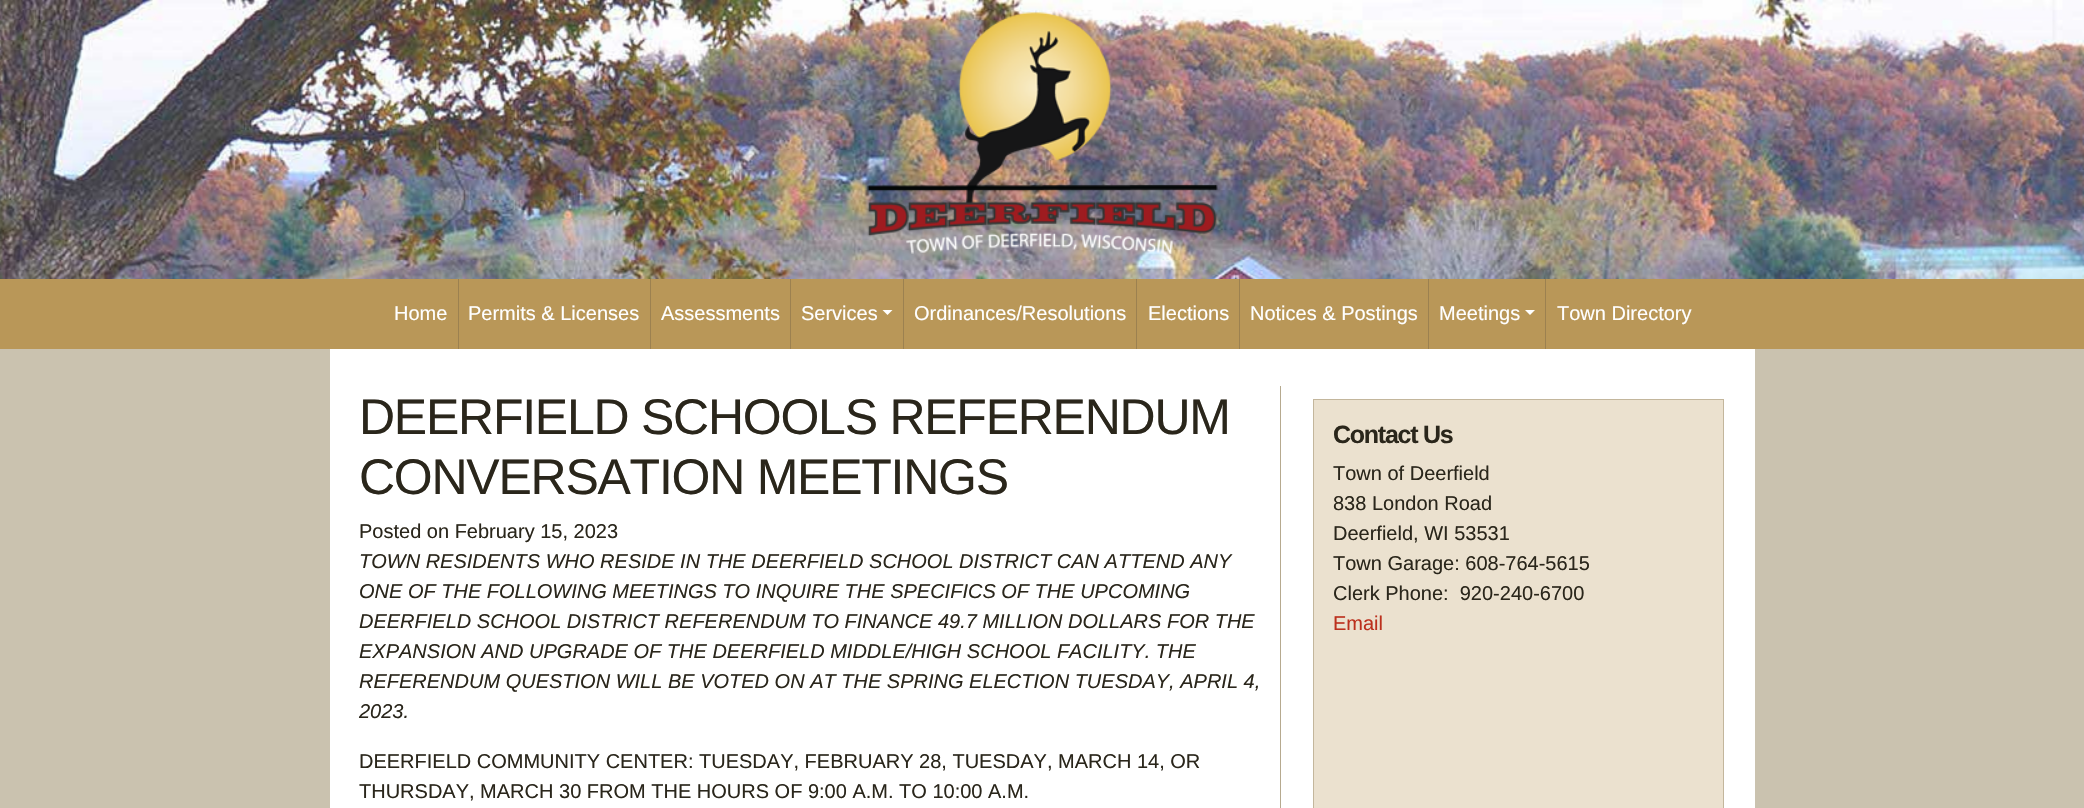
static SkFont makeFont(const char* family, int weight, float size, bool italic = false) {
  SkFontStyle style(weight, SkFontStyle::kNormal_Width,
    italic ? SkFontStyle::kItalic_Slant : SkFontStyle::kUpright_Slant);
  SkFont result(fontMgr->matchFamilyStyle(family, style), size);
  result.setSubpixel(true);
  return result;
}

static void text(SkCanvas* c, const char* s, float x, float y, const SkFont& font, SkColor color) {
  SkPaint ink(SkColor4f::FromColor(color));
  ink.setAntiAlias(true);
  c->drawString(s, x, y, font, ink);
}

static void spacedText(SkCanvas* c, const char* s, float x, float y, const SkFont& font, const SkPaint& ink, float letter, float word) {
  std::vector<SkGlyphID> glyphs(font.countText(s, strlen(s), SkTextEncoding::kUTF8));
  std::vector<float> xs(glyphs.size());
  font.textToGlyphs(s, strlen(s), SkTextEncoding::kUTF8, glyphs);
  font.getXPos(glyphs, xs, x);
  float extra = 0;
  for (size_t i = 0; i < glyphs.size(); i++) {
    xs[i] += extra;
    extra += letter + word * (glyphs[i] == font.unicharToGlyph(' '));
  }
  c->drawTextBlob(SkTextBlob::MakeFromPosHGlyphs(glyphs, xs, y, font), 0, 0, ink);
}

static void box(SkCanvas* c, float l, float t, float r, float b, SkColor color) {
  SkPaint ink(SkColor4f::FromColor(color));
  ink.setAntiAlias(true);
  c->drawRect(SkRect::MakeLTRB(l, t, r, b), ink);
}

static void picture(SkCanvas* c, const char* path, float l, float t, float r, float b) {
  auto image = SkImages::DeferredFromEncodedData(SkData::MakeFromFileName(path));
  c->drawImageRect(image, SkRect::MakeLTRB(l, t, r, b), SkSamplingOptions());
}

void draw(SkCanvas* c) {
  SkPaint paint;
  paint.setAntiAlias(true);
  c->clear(0xffcac2af);
  picture(c, "img_01.png", 0, 0, 2084, 279);
  picture(c, "img_02.png", 867, 12, 1218, 254);
  box(c, 0, 279, 2084, 349, 0xffb99758);
  box(c, 458, 279, 459, 349, 0xff9c8150);
  SkFont face1 = makeFont("Liberation Sans", 400, 20);
  text(c, "Home", 394, 320, face1, 0xffffffff);
  box(c, 650, 279, 651, 349, 0xff9c8150);
  text(c, "Permits & Licenses", 468, 320, face1, 0xffffffff);
  box(c, 790, 279, 791, 349, 0xff9c8150);
  text(c, "Assessments", 661, 320, face1, 0xffffffff);
  box(c, 903, 279, 904, 349, 0xff9c8150);
  text(c, "Services", 801, 320, face1, 0xffffffff);
  paint.setColor(0xffffffff);
  c->drawPath(SkPathBuilder().moveTo(882.5f, 310).lineTo(892.5f, 310).lineTo(887.5f, 315).close().detach(), paint);
  box(c, 1136, 279, 1137, 349, 0xff9c8150);
  text(c, "Ordinances/Resolutions", 914, 320, face1, 0xffffffff);
  box(c, 1239, 279, 1240, 349, 0xff9c8150);
  text(c, "Elections", 1148, 320, face1, 0xffffffff);
  box(c, 1428, 279, 1429, 349, 0xff9c8150);
  text(c, "Notices & Postings", 1250, 320, face1, 0xffffffff);
  box(c, 1545, 279, 1546, 349, 0xff9c8150);
  text(c, "Meetings", 1439, 320, face1, 0xffffffff);
  c->drawPath(SkPathBuilder().moveTo(1525, 310).lineTo(1535, 310).lineTo(1530, 315).close().detach(), paint);
  text(c, "Town Directory", 1557, 320, face1, 0xffffffff);
  box(c, 330, 349, 1755, 808, 0xffffffff);
  SkFont face2 = makeFont("Liberation Sans", 400, 50);
  paint.setColor(0xff2a261b);
  spacedText(c, "DEERFIELD SCHOOLS REFERENDUM", 359, 434, face2, paint, -1.25f, 0);
  spacedText(c, "CONVERSATION MEETINGS", 359, 494, face2, paint, -1.25f, 0);
  text(c, "Posted on February 15, 2023", 359, 538, face1, 0xff2a261b);
  SkFont face3 = makeFont("Liberation Sans", 400, 20, true);
  text(c, "TOWN RESIDENTS WHO RESIDE IN THE DEERFIELD SCHOOL DISTRICT CAN ATTEND ANY", 359, 568, face3, 0xff2a261b);
  text(c, "ONE OF THE FOLLOWING MEETINGS TO INQUIRE THE SPECIFICS OF THE UPCOMING", 359, 598, face3, 0xff2a261b);
  text(c, "DEERFIELD SCHOOL DISTRICT REFERENDUM TO FINANCE 49.7 MILLION DOLLARS FOR THE", 359, 628, face3, 0xff2a261b);
  text(c, "EXPANSION AND UPGRADE OF THE DEERFIELD MIDDLE/HIGH SCHOOL FACILITY. THE", 359, 658, face3, 0xff2a261b);
  text(c, "REFERENDUM QUESTION WILL BE VOTED ON AT THE SPRING ELECTION TUESDAY, APRIL 4,", 359, 688, face3, 0xff2a261b);
  text(c, "2023.", 359, 718, face3, 0xff2a261b);
  text(c, "DEERFIELD COMMUNITY CENTER: TUESDAY, FEBRUARY 28, TUESDAY, MARCH 14, OR", 359, 768, face1, 0xff2a261b);
  text(c, "THURSDAY, MARCH 30 FROM THE HOURS OF 9:00 A.M. TO 10:00 A.M.", 359, 798, face1, 0xff2a261b);
  box(c, 1280, 386, 1281, 808, 0xffb6aa8f);
  paint.setColor(0xffebe1cf);
  c->drawRect(SkRect::MakeLTRB(1313.5f, 399.5f, 1723.5f, 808.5f), paint);
  paint.setStyle(SkPaint::kStroke_Style);
  paint.setStrokeWidth(1);
  paint.setColor(0xffc3b69c);
  c->drawRect(SkRect::MakeLTRB(1313.5f, 399.5f, 1723.5f, 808.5f), paint);
  SkFont face4 = makeFont("Liberation Sans", 700, 25);
  paint.setStyle(SkPaint::kFill_Style);
  paint.setColor(0xff2a261b);
  spacedText(c, "Contact Us", 1333, 443, face4, paint, -1.25f, 0);
  text(c, "Town of Deerfield", 1333, 480, face1, 0xff2a261b);
  text(c, "838 London Road", 1333, 510, face1, 0xff2a261b);
  text(c, "Deerfield, WI 53531", 1333, 540, face1, 0xff2a261b);
  text(c, "Town Garage: 608-764-5615", 1333, 570, face1, 0xff2a261b);
  text(c, "Clerk Phone:  920-240-6700", 1333, 600, face1, 0xff2a261b);
  text(c, "Email", 1333, 630, face1, 0xffbc301d);
}
